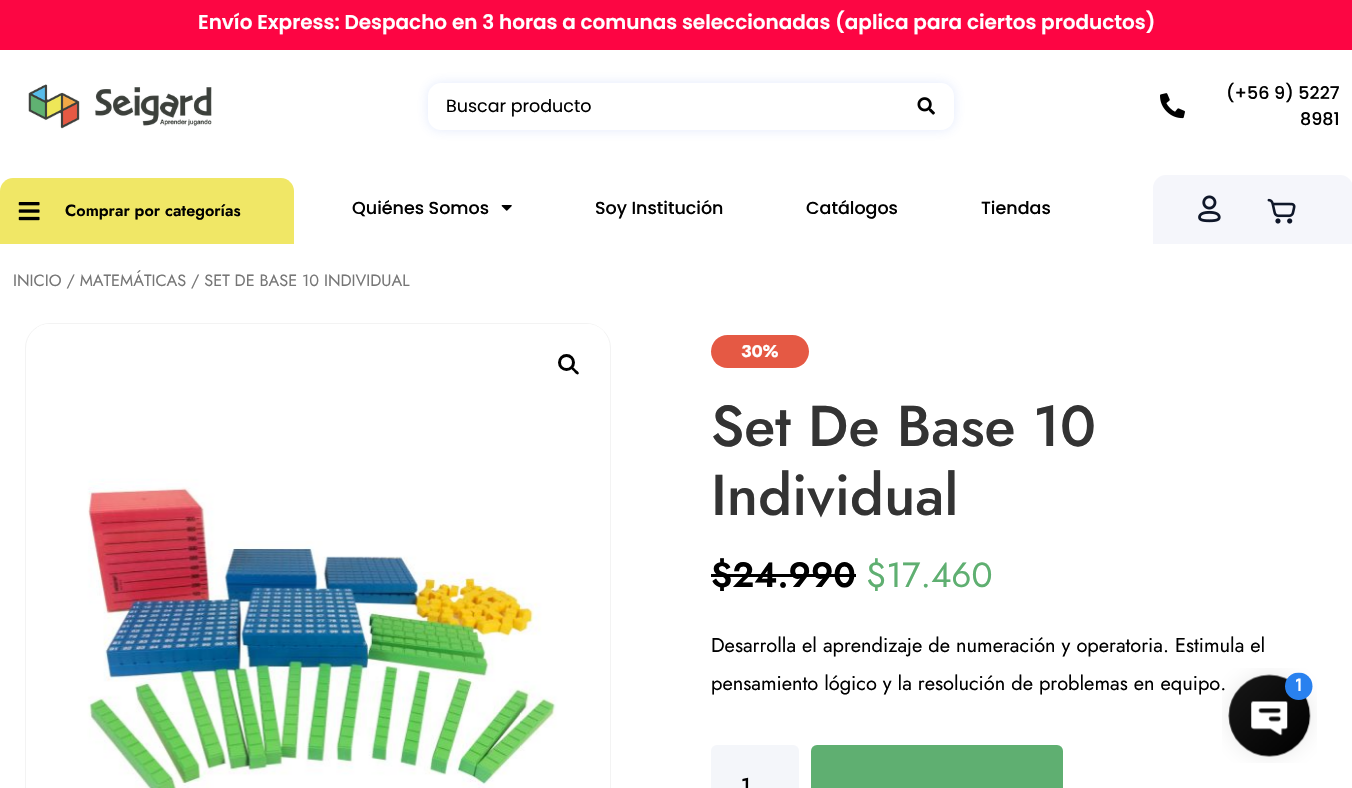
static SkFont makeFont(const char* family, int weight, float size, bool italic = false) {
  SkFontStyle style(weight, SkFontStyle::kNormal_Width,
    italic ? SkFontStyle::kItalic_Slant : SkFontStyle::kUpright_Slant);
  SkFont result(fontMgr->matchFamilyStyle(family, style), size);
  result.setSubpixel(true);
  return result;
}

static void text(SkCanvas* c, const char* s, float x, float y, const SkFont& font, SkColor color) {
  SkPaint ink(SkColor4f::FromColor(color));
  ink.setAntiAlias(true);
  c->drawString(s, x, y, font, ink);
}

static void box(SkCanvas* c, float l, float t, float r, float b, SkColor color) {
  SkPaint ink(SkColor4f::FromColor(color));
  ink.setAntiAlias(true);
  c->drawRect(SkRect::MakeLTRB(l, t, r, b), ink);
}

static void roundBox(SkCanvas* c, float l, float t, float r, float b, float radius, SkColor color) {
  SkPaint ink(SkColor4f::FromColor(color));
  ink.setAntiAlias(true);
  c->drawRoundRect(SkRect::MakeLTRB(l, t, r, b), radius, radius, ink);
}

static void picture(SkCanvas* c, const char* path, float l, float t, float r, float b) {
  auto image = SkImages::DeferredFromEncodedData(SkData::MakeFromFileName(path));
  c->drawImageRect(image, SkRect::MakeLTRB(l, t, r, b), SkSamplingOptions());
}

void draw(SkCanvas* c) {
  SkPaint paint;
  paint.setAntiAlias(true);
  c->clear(0xffffffff);
  {
    const SkColor colors[] = {0xfffc0643, 0xfffd0543};
    const float stops[] = {0, 1};
    const SkPoint ends[] = {{676, 0}, {676, 50}};
    paint.setShader(SkGradientShader::MakeLinear(ends, colors, stops, 2, SkTileMode::kClamp));
    paint.setAlpha(255);
  }
  c->drawRect(SkRect::MakeLTRB(0, 0, 1352, 50), paint);
  SkFont face1 = makeFont("Poppins", 600, 20);
  text(c, "Envío Express: Despacho en 3 horas a comunas seleccionadas (aplica para ciertos productos)", 198, 29, face1, 0xffffffff);
  picture(c, "img_01.png", 28, 84, 212, 129);
  c->save();
  c->clipPath(SkPathBuilder(SkPathFillType::kEvenOdd).moveTo(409, 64).lineTo(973, 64).lineTo(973, 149).lineTo(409, 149).close().moveTo(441, 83).lineTo(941, 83).cubicTo(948, 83, 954, 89, 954, 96).lineTo(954, 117).cubicTo(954, 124, 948, 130, 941, 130).lineTo(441, 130).cubicTo(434, 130, 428, 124, 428, 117).lineTo(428, 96).cubicTo(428, 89, 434, 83, 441, 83).close().detach(), true);
  paint.setShader(nullptr);
  paint.setColor(0x264270ec);
  paint.setMaskFilter(SkMaskFilter::MakeBlur(kNormal_SkBlurStyle, 6));
  c->drawRoundRect(SkRect::MakeLTRB(428, 83, 954, 130), 13, 13, paint);
  paint.setMaskFilter(nullptr);
  c->restore();
  SkFont face2 = makeFont("Poppins", 400, 17.5f);
  text(c, "Buscar producto", 446, 112, face2, 0xff000000);
  picture(c, "img_02.png", 917, 97, 935, 115);
  picture(c, "img_03.png", 1160, 93, 1185, 119);
  SkFont face3 = makeFont("Poppins", 500, 17.5f);
  text(c, "(+56 9) 5227", 1226, 99, face3, 0xff000000);
  text(c, "8981", 1300, 125, face3, 0xff000000);
  paint.setColor(0xfff0e766);
  c->drawPath(SkPathBuilder().moveTo(13, 178).lineTo(281, 178).cubicTo(288, 178, 294, 184, 294, 191).lineTo(294, 244).lineTo(0, 244).lineTo(0, 191).cubicTo(0, 184, 6, 178, 13, 178).close().detach(), paint);
  picture(c, "img_04.png", 18, 202, 40, 221);
  SkFont face4 = makeFont("Jost", 600, 16.25f);
  text(c, "Comprar por categorías", 65, 216, face4, 0xff000000);
  text(c, "Quiénes Somos", 352, 214, face3, 0xff000000);
  picture(c, "img_05.png", 501, 205, 512, 211);
  text(c, "Soy Institución", 595, 214, face3, 0xff000000);
  text(c, "Catálogos", 806, 214, face3, 0xff000000);
  text(c, "Tiendas", 981, 214, face3, 0xff000000);
  paint.setColor(0xfff5f6fb);
  c->drawPath(SkPathBuilder().moveTo(1166, 175).lineTo(1340, 175).cubicTo(1347, 175, 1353, 181, 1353, 188).lineTo(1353, 244).lineTo(1153, 244).lineTo(1153, 188).cubicTo(1153, 181, 1159, 175, 1166, 175).close().detach(), paint);
  picture(c, "img_06.png", 1198, 195, 1221, 223);
  picture(c, "img_07.png", 1267, 198, 1296, 224);
  SkFont face5 = makeFont("Jost", 400, 16.25f);
  text(c, "INICIO / MATEMÁTICAS / SET DE BASE 10 INDIVIDUAL", 13, 286, face5, 0xff767676);
  paint.setStyle(SkPaint::kStroke_Style);
  paint.setStrokeWidth(1);
  paint.setColor(0xfff3f3f3);
  c->drawRoundRect(SkRect::MakeLTRB(25.5f, 323.5f, 610.5f, 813.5f), 24.5f, 24.5f, paint);
  picture(c, "img_08.png", 37, 324, 604, 788);
  paint.setStrokeWidth(3);
  paint.setColor(0xff000000);
  c->drawCircle(566.5f, 362.5f, 7, paint);
  paint.setStyle(SkPaint::kFill_Style);
  c->drawPath(SkPathBuilder().moveTo(571.5f, 367).cubicTo(572.5f, 365.5f, 575, 369, 575.5f, 369.5f).cubicTo(576.5f, 370.5f, 580, 372.5f, 578.5f, 374).cubicTo(577, 375.5f, 574.5f, 372.5f, 574, 371.5f).cubicTo(573, 370.5f, 570, 368.5f, 571.5f, 367).close().detach(), paint);
  roundBox(c, 711, 335, 809, 368, 16.5f, 0xffe55944);
  SkFont face6 = makeFont("Jost", 700, 17);
  text(c, "30%", 741, 357, face6, 0xffffffff);
  SkFont face7 = makeFont("Jost", 500, 57.5f);
  text(c, "Set De Base 10", 711, 446, face7, 0xff333333);
  text(c, "Individual", 711, 515, face7, 0xff333333);
  SkFont face8 = makeFont("Jost", 600, 35);
  text(c, "$24.990", 711, 587, face8, 0xff000000);
  box(c, 711, 574, 856, 577, 0xff000000);
  SkFont face9 = makeFont("Jost", 400, 35);
  text(c, "$17.460", 866, 587, face9, 0xff5faf71);
  SkFont face10 = makeFont("Jost", 400, 20);
  text(c, "Desarrolla el aprendizaje de numeración y operatoria. Estimula el", 711, 652, face10, 0xff000000);
  text(c, "pensamiento lógico y la resolución de problemas en equipo.", 711, 690, face10, 0xff000000);
  roundBox(c, 711, 745, 799, 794, 6, 0xfff4f6fa);
  SkFont face11 = makeFont("Jost", 500, 20);
  text(c, "1", 741, 792, face11, 0xff000000);
  roundBox(c, 811, 745, 1063, 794, 6, 0xff5faf71);
  picture(c, "img_09.png", 1222, 668, 1317, 763);
}
